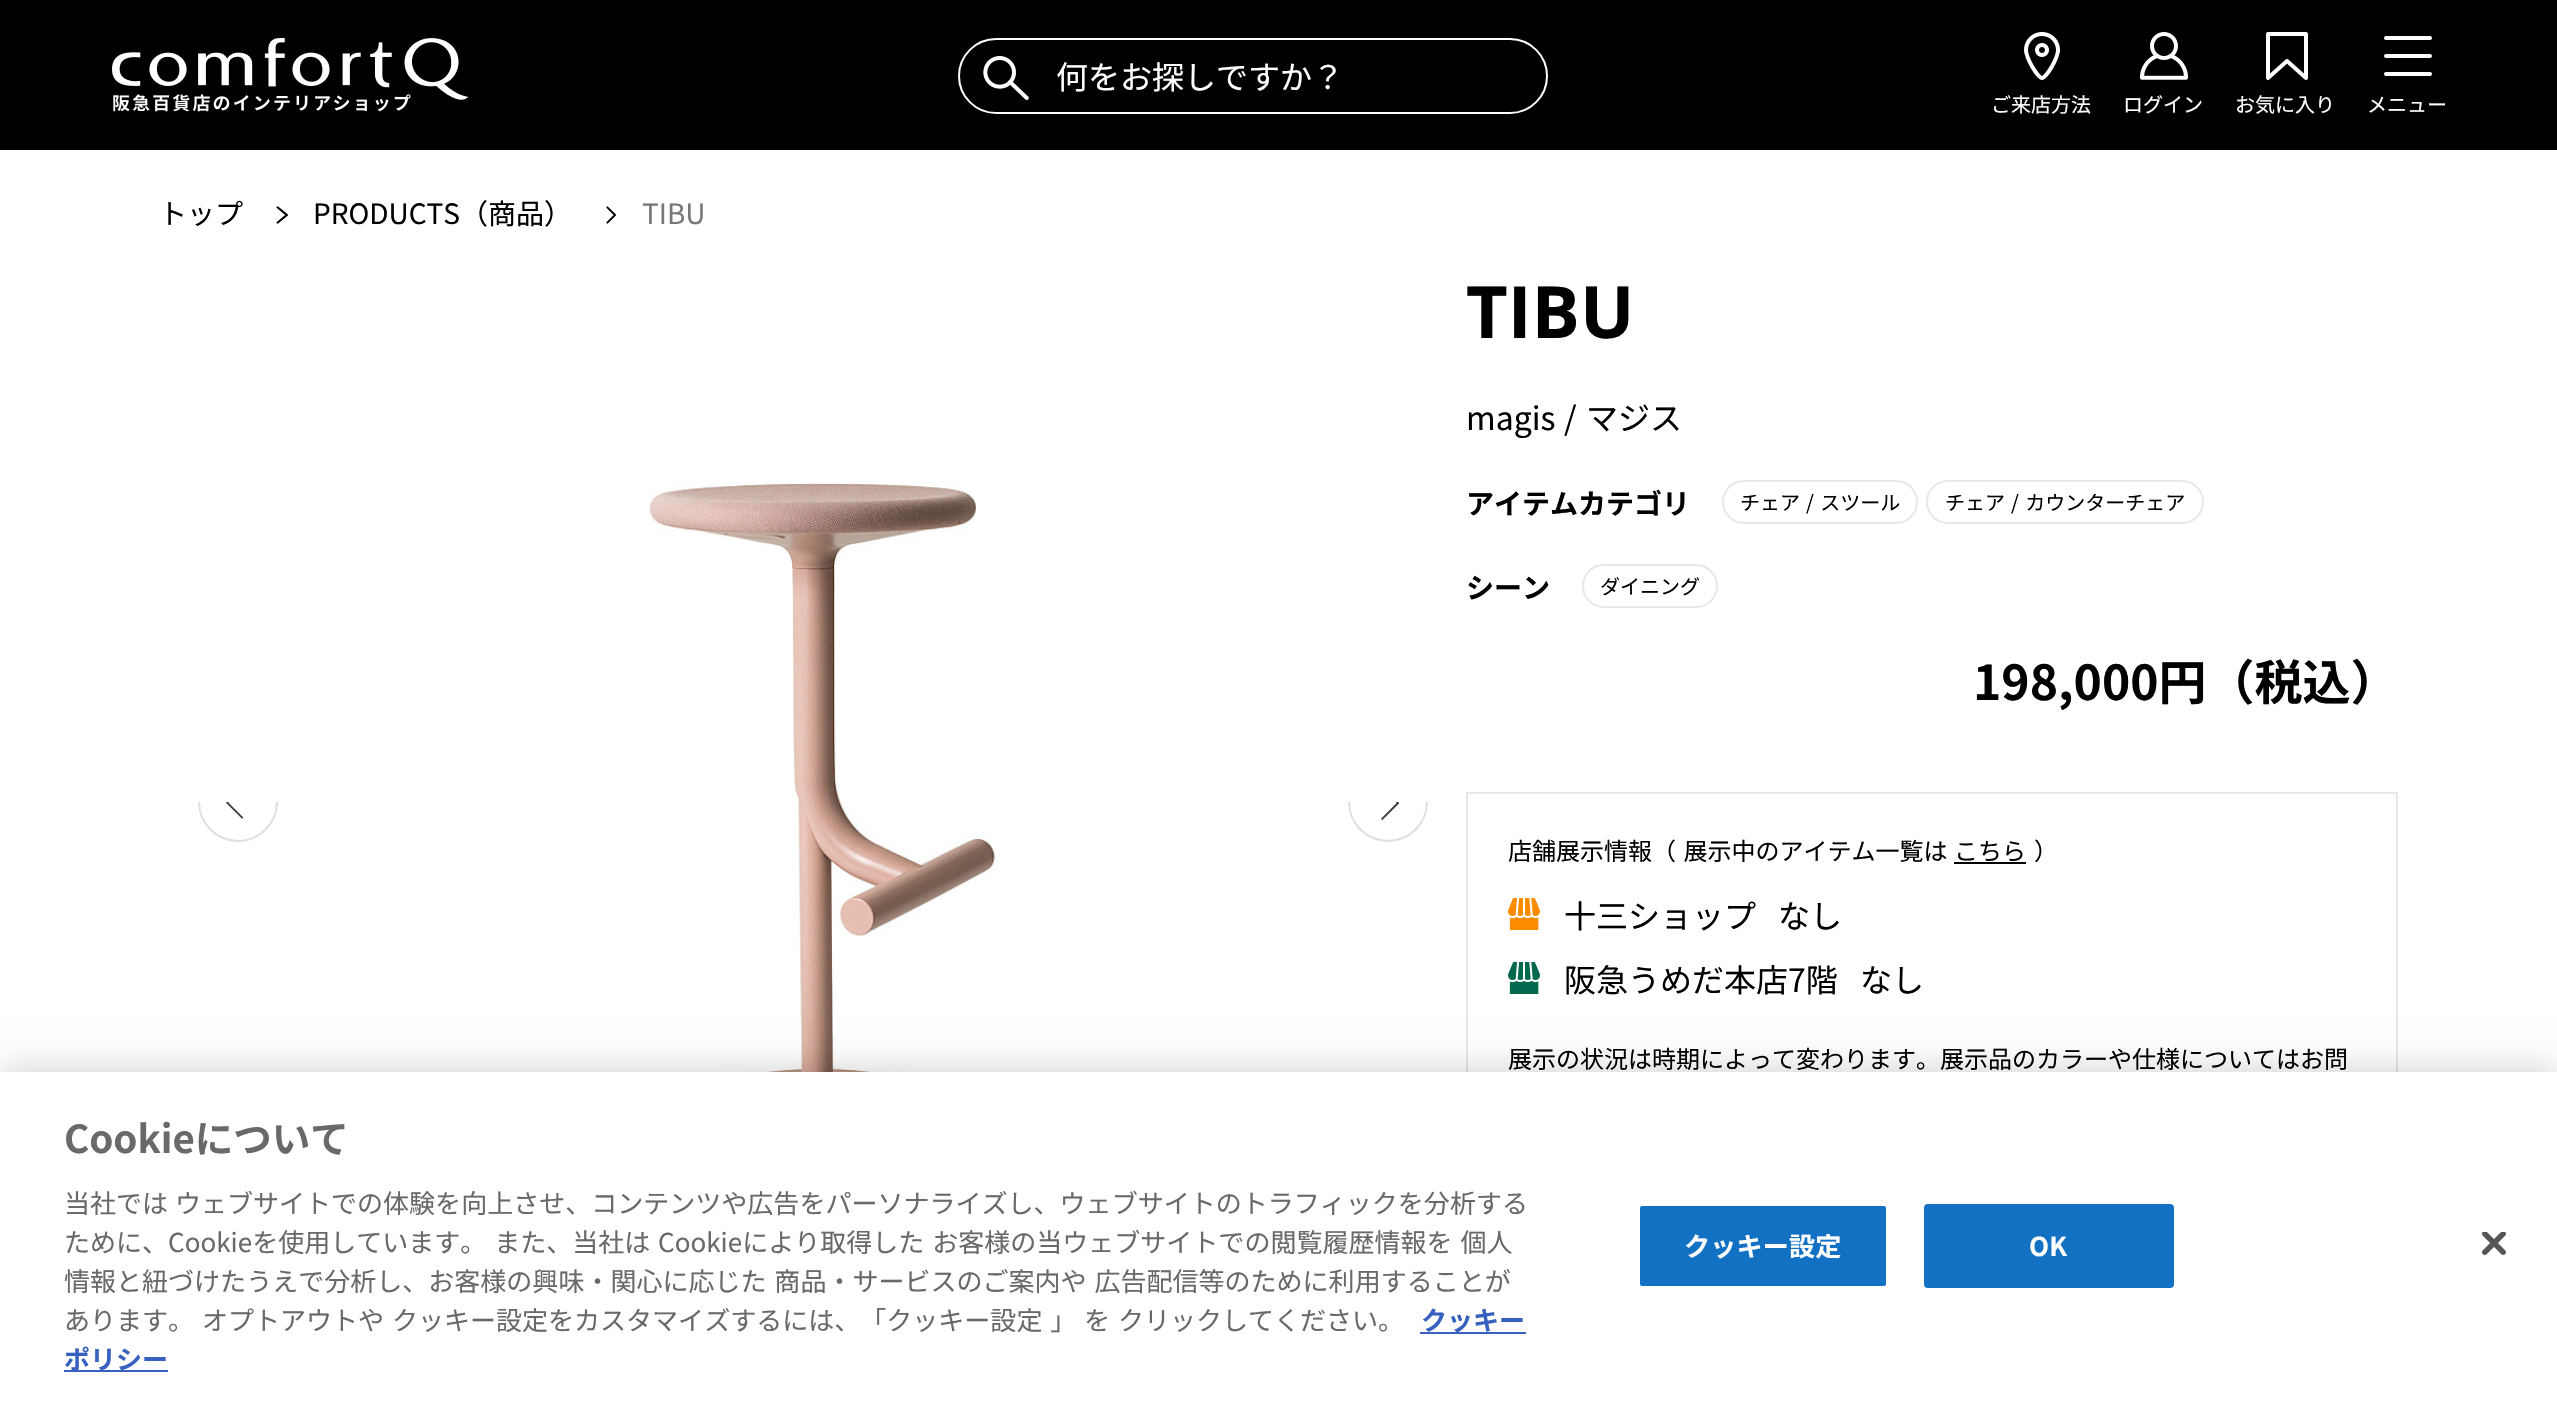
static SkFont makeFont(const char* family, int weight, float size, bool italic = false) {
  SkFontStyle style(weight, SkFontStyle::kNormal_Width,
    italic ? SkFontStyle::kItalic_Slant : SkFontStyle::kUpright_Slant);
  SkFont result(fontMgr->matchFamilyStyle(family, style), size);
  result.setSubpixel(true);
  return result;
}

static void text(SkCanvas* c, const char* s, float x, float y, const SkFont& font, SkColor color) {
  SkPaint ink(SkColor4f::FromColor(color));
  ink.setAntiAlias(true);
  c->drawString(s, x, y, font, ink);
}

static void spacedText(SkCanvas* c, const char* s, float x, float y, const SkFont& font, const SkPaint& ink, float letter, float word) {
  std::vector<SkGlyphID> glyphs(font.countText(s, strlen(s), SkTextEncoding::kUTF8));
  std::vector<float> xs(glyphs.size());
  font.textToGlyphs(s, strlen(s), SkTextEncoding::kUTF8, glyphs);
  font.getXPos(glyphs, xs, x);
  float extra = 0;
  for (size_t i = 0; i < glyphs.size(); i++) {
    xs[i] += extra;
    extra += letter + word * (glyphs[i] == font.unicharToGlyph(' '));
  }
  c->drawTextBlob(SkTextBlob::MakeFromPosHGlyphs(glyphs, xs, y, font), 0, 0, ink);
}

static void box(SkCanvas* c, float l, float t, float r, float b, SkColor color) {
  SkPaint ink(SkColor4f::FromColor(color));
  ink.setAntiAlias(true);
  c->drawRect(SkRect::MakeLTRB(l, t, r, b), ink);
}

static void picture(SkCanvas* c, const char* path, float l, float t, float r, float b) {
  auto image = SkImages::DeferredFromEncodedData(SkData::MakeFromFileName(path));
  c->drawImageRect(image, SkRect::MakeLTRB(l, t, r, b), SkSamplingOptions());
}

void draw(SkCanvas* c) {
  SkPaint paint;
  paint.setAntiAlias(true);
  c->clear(0xffffffff);
  box(c, 0, 0, 2557, 150, 0xff000000);
  picture(c, "img_01.png", 112, 38, 468, 112);
  paint.setStyle(SkPaint::kStroke_Style);
  paint.setStrokeWidth(2);
  paint.setColor(0xffffffff);
  c->drawRoundRect(SkRect::MakeLTRB(959, 39, 1547, 113), 37, 37, paint);
  picture(c, "img_02.png", 983, 56, 1029, 100);
  SkFont face1 = makeFont("Noto Sans JP", 400, 32);
  text(c, "何をお探しですか？", 1056, 89, face1, 0xffffffff);
  picture(c, "img_03.png", 2024, 32, 2060, 80);
  SkFont face2 = makeFont("Noto Sans JP", 400, 20);
  text(c, "ご来店方法", 1991, 112, face2, 0xffffffff);
  picture(c, "img_04.png", 2140, 32, 2188, 80);
  text(c, "ログイン", 2123, 112, face2, 0xffffffff);
  picture(c, "img_05.png", 2266, 32, 2308, 80);
  text(c, "お気に入り", 2235, 112, face2, 0xffffffff);
  picture(c, "img_06.png", 2384, 36, 2432, 76);
  text(c, "メニュー", 2367, 112, face2, 0xffffffff);
  SkFont face3 = makeFont("Noto Sans JP", 400, 28);
  text(c, "トップ", 159, 224, face3, 0xff000000);
  picture(c, "img_07.png", 276, 206, 288, 224);
  text(c, "PRODUCTS（商品）", 313, 224, face3, 0xff000000);
  picture(c, "img_08.png", 606, 206, 616, 224);
  text(c, "TIBU", 642, 224, face3, 0xff777776);
  picture(c, "img_09.png", 198, 802, 278, 842);
  picture(c, "img_10.png", 649, 482, 998, 1072);
  picture(c, "img_11.png", 1348, 802, 1428, 842);
  SkFont face4 = makeFont("Open Sans", 700, 72);
  text(c, "TIBU", 1466, 338, face4, 0xff000000);
  text(c, "magis", 1466, 430, face1, 0xff000000);
  text(c, "/", 1564, 430, face1, 0xff000000);
  text(c, "マジス", 1586, 430, face1, 0xff000000);
  SkFont face5 = makeFont("Noto Sans JP", 700, 28);
  text(c, "アイテムカテゴリ", 1466, 514, face5, 0xff000000);
  paint.setColor(0xffe5e7eb);
  c->drawRoundRect(SkRect::MakeLTRB(1723, 481, 1917, 523), 21, 21, paint);
  text(c, "チェア", 1740, 510, face2, 0xff000000);
  paint.setStyle(SkPaint::kFill_Style);
  paint.setColor(0xff000000);
  spacedText(c, "/ スツール", 1806, 510, face2, paint, 0, 2);
  paint.setStyle(SkPaint::kStroke_Style);
  paint.setColor(0xffe5e7eb);
  c->drawRoundRect(SkRect::MakeLTRB(1927, 481, 2203, 523), 21, 21, paint);
  text(c, "チェア", 1945, 510, face2, 0xff000000);
  paint.setStyle(SkPaint::kFill_Style);
  paint.setColor(0xff000000);
  spacedText(c, "/ カウンターチェア", 2011, 510, face2, paint, 0, 2);
  text(c, "シーン", 1466, 598, face5, 0xff000000);
  paint.setStyle(SkPaint::kStroke_Style);
  paint.setColor(0xffe5e7eb);
  c->drawRoundRect(SkRect::MakeLTRB(1583, 565, 1717, 607), 21, 21, paint);
  text(c, "ダイニング", 1600, 594, face2, 0xff000000);
  SkFont face6 = makeFont("Noto Sans JP", 700, 48);
  text(c, "198,000円（税込）", 1973, 700, face6, 0xff000000);
  c->drawRect(SkRect::MakeLTRB(1467, 793, 2397, 1147), paint);
  SkFont face7 = makeFont("Noto Sans JP", 400, 24);
  paint.setStyle(SkPaint::kFill_Style);
  paint.setColor(0xff000000);
  spacedText(c, "店舗展⽰情報（ 展⽰中のアイテム⼀覧は", 1508, 860, face7, paint, 0, 2);
  text(c, "こちら", 1954, 860, face7, 0xff000000);
  box(c, 1954, 862, 2026, 864, 0xff000000);
  text(c, "）", 2034, 860, face7, 0xff000000);
  picture(c, "img_12.png", 1508, 898, 1540, 930);
  text(c, "⼗三ショップ", 1564, 928, face1, 0xff000000);
  text(c, "なし", 1778, 928, face1, 0xff000000);
  picture(c, "img_13.png", 1508, 962, 1540, 994);
  text(c, "阪急うめだ本店7階", 1564, 992, face1, 0xff000000);
  text(c, "なし", 1860, 992, face1, 0xff000000);
  text(c, "展示の状況は時期によって変わります。展示品のカラーや仕様についてはお問", 1508, 1068, face7, 0xff000000);
  paint.setColor(0x33000000);
  paint.setMaskFilter(SkMaskFilter::MakeBlur(kNormal_SkBlurStyle, 18));
  c->drawRect(SkRect::MakeLTRB(0, 1072, 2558, 1424), paint);
  paint.setMaskFilter(nullptr);
  box(c, 0, 1072, 2557, 1424, 0xffffffff);
  SkFont face8 = makeFont("Noto Sans JP", 700, 38.5f);
  text(c, "Cookieについて", 64, 1153, face8, 0xff696969);
  SkFont face9 = makeFont("Noto Sans JP", 400, 26.02f);
  paint.setColor(0xff696969);
  spacedText(c, "当社では ウェブサイトでの体験を向上させ、コンテンツや広告をパーソナライズし、ウェブサイトのトラフィックを分析する", 64, 1213, face9, paint, 0, 1);
  spacedText(c, "ために、Cookieを使用しています。 また、当社は Cookieにより取得した お客様の当ウェブサイトでの閲覧履歴情報を 個人", 64, 1252, face9, paint, 0, 2);
  spacedText(c, "情報と紐づけたうえで分析し、お客様の興味・関心に応じた 商品・サービスのご案内や 広告配信等のために利用することが", 64, 1291, face9, paint, 0, 2);
  spacedText(c, "あります。 オプトアウトや クッキー設定をカスタマイズするには、「クッキー設定 」 を クリックしてください。", 64, 1330, face9, paint, 0, 2);
  box(c, 1420, 1332, 1526, 1334, 0xff3860be);
  SkFont face10 = makeFont("Noto Sans JP", 700, 26.02f);
  text(c, "クッキー", 1421, 1330, face10, 0xff3860be);
  box(c, 64, 1370, 168, 1372, 0xff3860be);
  text(c, "ポリシー", 64, 1369, face10, 0xff3860be);
  paint.setColor(0xff1371c3);
  c->drawRoundRect(SkRect::MakeLTRB(1639, 1205, 1887, 1287), 3, 3, paint);
  paint.setStyle(SkPaint::kStroke_Style);
  paint.setColor(0xffffffff);
  c->drawRoundRect(SkRect::MakeLTRB(1639, 1205, 1887, 1287), 3, 3, paint);
  paint.setStyle(SkPaint::kFill_Style);
  spacedText(c, "クッキー設定", 1684, 1256, face10, paint, 0.25f, 0);
  paint.setColor(0xff1371c3);
  c->drawRoundRect(SkRect::MakeLTRB(1925, 1205, 2173, 1287), 3, 3, paint);
  paint.setStyle(SkPaint::kStroke_Style);
  c->drawRoundRect(SkRect::MakeLTRB(1925, 1205, 2173, 1287), 3, 3, paint);
  paint.setStyle(SkPaint::kFill_Style);
  paint.setColor(0xffffffff);
  spacedText(c, "OK", 2029, 1256, face10, paint, 0.25f, 0);
  picture(c, "img_14.png", 2482, 1232, 2506, 1255);
}
